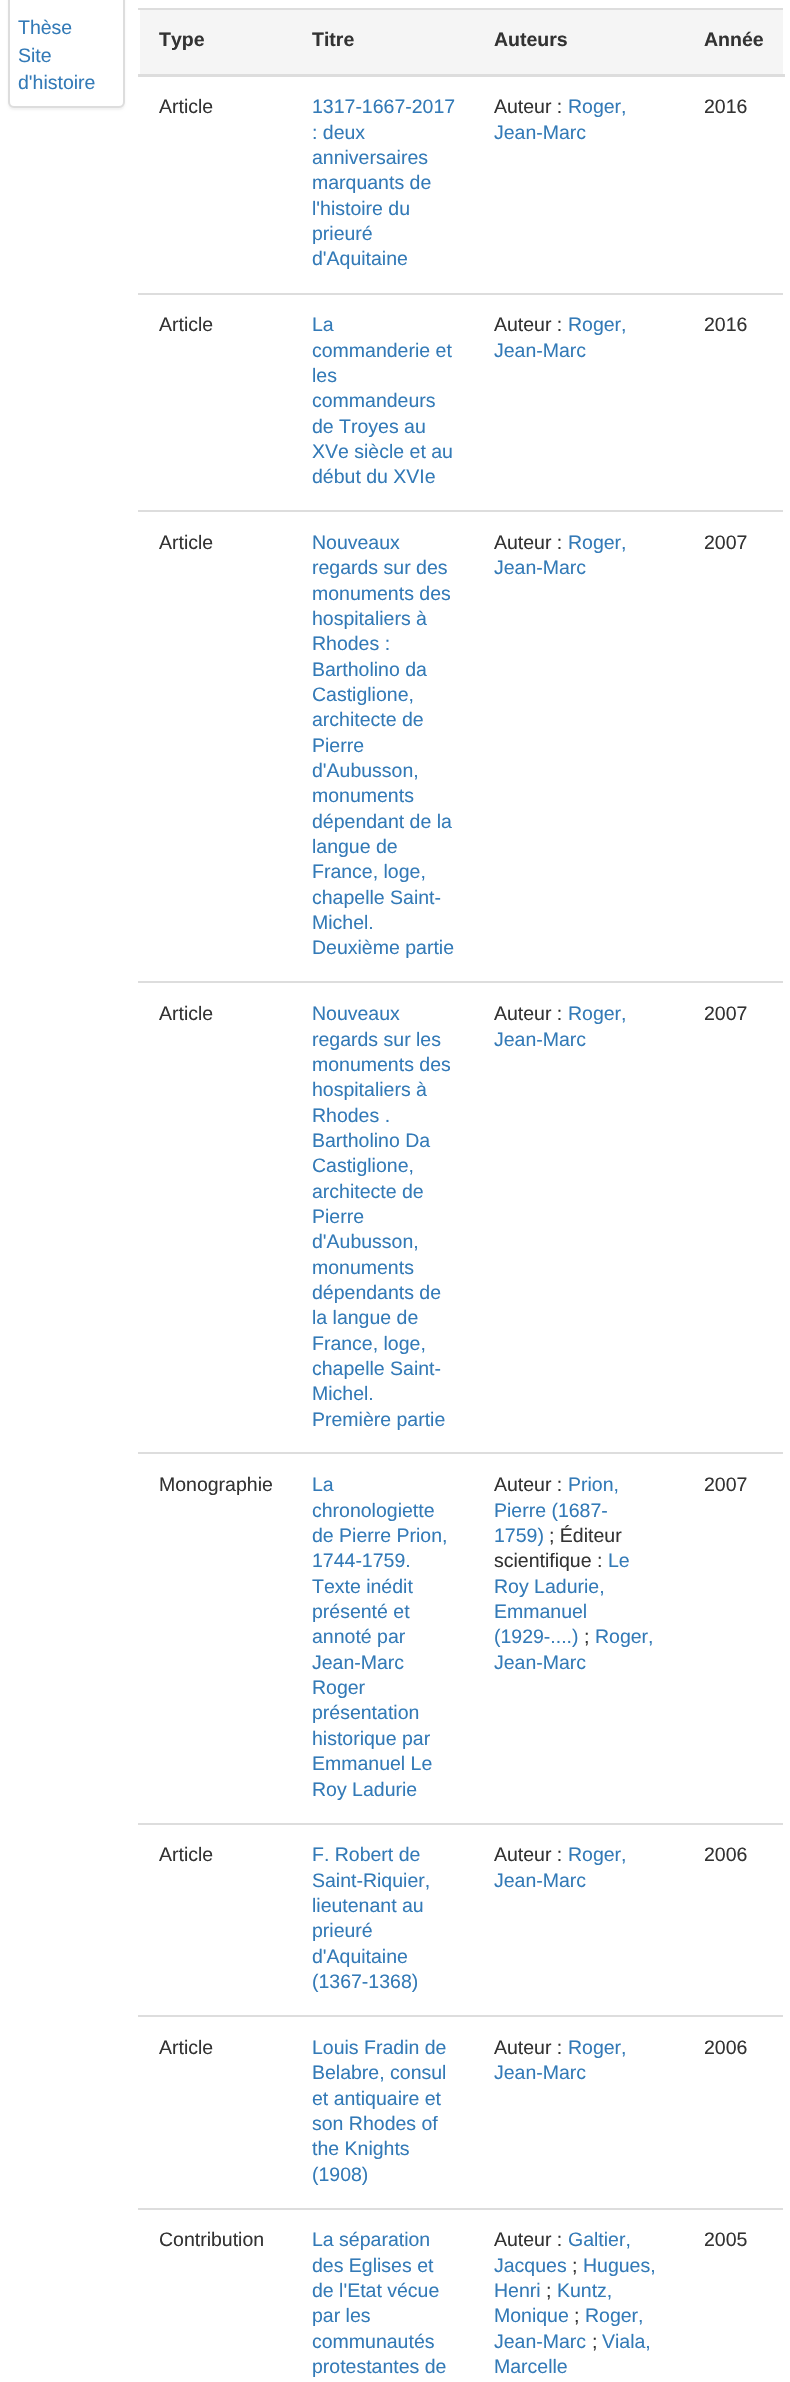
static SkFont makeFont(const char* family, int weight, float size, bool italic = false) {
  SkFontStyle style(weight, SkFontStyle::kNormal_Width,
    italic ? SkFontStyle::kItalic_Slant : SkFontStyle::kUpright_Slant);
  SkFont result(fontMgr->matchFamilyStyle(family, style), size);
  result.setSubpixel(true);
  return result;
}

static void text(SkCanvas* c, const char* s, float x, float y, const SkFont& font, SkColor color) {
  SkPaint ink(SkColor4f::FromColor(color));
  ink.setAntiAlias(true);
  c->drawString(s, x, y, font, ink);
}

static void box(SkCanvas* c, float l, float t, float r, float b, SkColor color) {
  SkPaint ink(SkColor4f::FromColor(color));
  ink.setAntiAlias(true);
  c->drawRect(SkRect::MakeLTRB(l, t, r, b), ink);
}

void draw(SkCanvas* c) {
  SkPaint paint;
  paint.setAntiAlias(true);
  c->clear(0xffffffff);
  paint.setColor(0x0d000000);
  paint.setMaskFilter(SkMaskFilter::MakeBlur(kNormal_SkBlurStyle, 1));
  c->drawRoundRect(SkRect::MakeLTRB(8, -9, 125, 110), 6, 6, paint);
  paint.setMaskFilter(nullptr);
  paint.setColor(0xffffffff);
  c->drawRoundRect(SkRect::MakeLTRB(9, -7, 124, 107), 5, 5, paint);
  paint.setStyle(SkPaint::kStroke_Style);
  paint.setStrokeWidth(2);
  paint.setColor(0xffdddddd);
  c->drawRoundRect(SkRect::MakeLTRB(9, -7, 124, 107), 5, 5, paint);
  SkFont face1 = makeFont("Liberation Sans", 400, 19.5f);
  text(c, "Thèse", 18, 34, face1, 0xff337ab7);
  text(c, "Site", 18, 62, face1, 0xff337ab7);
  text(c, "d'histoire", 18, 89, face1, 0xff337ab7);
  box(c, 140, 10, 783, 74, 0xfff5f5f5);
  SkFont face2 = makeFont("Liberation Sans", 700, 19.5f);
  text(c, "Type", 159, 46, face2, 0xff333333);
  text(c, "Titre", 312, 46, face2, 0xff333333);
  text(c, "Auteurs", 494, 46, face2, 0xff333333);
  box(c, 138, 8, 783, 10, 0xffdddddd);
  text(c, "Année", 704, 46, face2, 0xff333333);
  box(c, 138, 74, 785, 77, 0xffdddddd);
  text(c, "Article", 159, 113, face1, 0xff333333);
  text(c, "1317-1667-2017", 312, 113, face1, 0xff337ab7);
  text(c, ": deux", 312, 139, face1, 0xff337ab7);
  text(c, "anniversaires", 312, 164, face1, 0xff337ab7);
  text(c, "marquants de", 312, 189, face1, 0xff337ab7);
  text(c, "l'histoire du", 312, 215, face1, 0xff337ab7);
  text(c, "prieuré", 312, 240, face1, 0xff337ab7);
  text(c, "d'Aquitaine", 312, 265, face1, 0xff337ab7);
  text(c, "Auteur :", 494, 113, face1, 0xff333333);
  text(c, "Roger,", 568, 113, face1, 0xff337ab7);
  text(c, "Jean-Marc", 494, 139, face1, 0xff337ab7);
  text(c, "2016", 704, 113, face1, 0xff333333);
  text(c, "Article", 159, 331, face1, 0xff333333);
  text(c, "La", 312, 331, face1, 0xff337ab7);
  text(c, "commanderie et", 312, 357, face1, 0xff337ab7);
  text(c, "les", 312, 382, face1, 0xff337ab7);
  text(c, "commandeurs", 312, 407, face1, 0xff337ab7);
  text(c, "de Troyes au", 312, 433, face1, 0xff337ab7);
  text(c, "XVe siècle et au", 312, 458, face1, 0xff337ab7);
  text(c, "début du XVIe", 312, 483, face1, 0xff337ab7);
  text(c, "Auteur :", 494, 331, face1, 0xff333333);
  text(c, "Roger,", 568, 331, face1, 0xff337ab7);
  text(c, "Jean-Marc", 494, 357, face1, 0xff337ab7);
  box(c, 138, 293, 783, 295, 0xffdddddd);
  text(c, "2016", 704, 331, face1, 0xff333333);
  text(c, "Article", 159, 549, face1, 0xff333333);
  text(c, "Nouveaux", 312, 549, face1, 0xff337ab7);
  text(c, "regards sur des", 312, 574, face1, 0xff337ab7);
  text(c, "monuments des", 312, 600, face1, 0xff337ab7);
  text(c, "hospitaliers à", 312, 625, face1, 0xff337ab7);
  text(c, "Rhodes :", 312, 650, face1, 0xff337ab7);
  text(c, "Bartholino da", 312, 676, face1, 0xff337ab7);
  text(c, "Castiglione,", 312, 701, face1, 0xff337ab7);
  text(c, "architecte de", 312, 726, face1, 0xff337ab7);
  text(c, "Pierre", 312, 752, face1, 0xff337ab7);
  text(c, "d'Aubusson,", 312, 777, face1, 0xff337ab7);
  text(c, "monuments", 312, 802, face1, 0xff337ab7);
  text(c, "dépendant de la", 312, 828, face1, 0xff337ab7);
  text(c, "langue de", 312, 853, face1, 0xff337ab7);
  text(c, "France, loge,", 312, 878, face1, 0xff337ab7);
  text(c, "chapelle Saint-", 312, 904, face1, 0xff337ab7);
  text(c, "Michel.", 312, 929, face1, 0xff337ab7);
  text(c, "Deuxième partie", 312, 954, face1, 0xff337ab7);
  text(c, "Auteur :", 494, 549, face1, 0xff333333);
  text(c, "Roger,", 568, 549, face1, 0xff337ab7);
  text(c, "Jean-Marc", 494, 574, face1, 0xff337ab7);
  box(c, 138, 510, 783, 512, 0xffdddddd);
  text(c, "2007", 704, 549, face1, 0xff333333);
  text(c, "Article", 159, 1020, face1, 0xff333333);
  text(c, "Nouveaux", 312, 1020, face1, 0xff337ab7);
  text(c, "regards sur les", 312, 1046, face1, 0xff337ab7);
  text(c, "monuments des", 312, 1071, face1, 0xff337ab7);
  text(c, "hospitaliers à", 312, 1096, face1, 0xff337ab7);
  text(c, "Rhodes .", 312, 1122, face1, 0xff337ab7);
  text(c, "Bartholino Da", 312, 1147, face1, 0xff337ab7);
  text(c, "Castiglione,", 312, 1172, face1, 0xff337ab7);
  text(c, "architecte de", 312, 1198, face1, 0xff337ab7);
  text(c, "Pierre", 312, 1223, face1, 0xff337ab7);
  text(c, "d'Aubusson,", 312, 1248, face1, 0xff337ab7);
  text(c, "monuments", 312, 1274, face1, 0xff337ab7);
  text(c, "dépendants de", 312, 1299, face1, 0xff337ab7);
  text(c, "la langue de", 312, 1324, face1, 0xff337ab7);
  text(c, "France, loge,", 312, 1350, face1, 0xff337ab7);
  text(c, "chapelle Saint-", 312, 1375, face1, 0xff337ab7);
  text(c, "Michel.", 312, 1400, face1, 0xff337ab7);
  text(c, "Première partie", 312, 1426, face1, 0xff337ab7);
  text(c, "Auteur :", 494, 1020, face1, 0xff333333);
  text(c, "Roger,", 568, 1020, face1, 0xff337ab7);
  text(c, "Jean-Marc", 494, 1046, face1, 0xff337ab7);
  box(c, 138, 981, 783, 983, 0xffdddddd);
  text(c, "2007", 704, 1020, face1, 0xff333333);
  text(c, "Monographie", 159, 1491, face1, 0xff333333);
  text(c, "La", 312, 1491, face1, 0xff337ab7);
  text(c, "chronologiette", 312, 1517, face1, 0xff337ab7);
  text(c, "de Pierre Prion,", 312, 1542, face1, 0xff337ab7);
  text(c, "1744-1759.", 312, 1567, face1, 0xff337ab7);
  text(c, "Texte inédit", 312, 1593, face1, 0xff337ab7);
  text(c, "présenté et", 312, 1618, face1, 0xff337ab7);
  text(c, "annoté par", 312, 1643, face1, 0xff337ab7);
  text(c, "Jean-Marc", 312, 1669, face1, 0xff337ab7);
  text(c, "Roger", 312, 1694, face1, 0xff337ab7);
  text(c, "présentation", 312, 1719, face1, 0xff337ab7);
  text(c, "historique par", 312, 1745, face1, 0xff337ab7);
  text(c, "Emmanuel Le", 312, 1770, face1, 0xff337ab7);
  text(c, "Roy Ladurie", 312, 1796, face1, 0xff337ab7);
  text(c, "Auteur :", 494, 1491, face1, 0xff333333);
  text(c, "Prion,", 568, 1491, face1, 0xff337ab7);
  text(c, "Pierre (1687-", 494, 1517, face1, 0xff337ab7);
  text(c, "1759)", 494, 1542, face1, 0xff337ab7);
  text(c, "; Éditeur", 549, 1542, face1, 0xff333333);
  text(c, "scientifique :", 494, 1567, face1, 0xff333333);
  text(c, "Le", 608, 1567, face1, 0xff337ab7);
  text(c, "Roy Ladurie,", 494, 1593, face1, 0xff337ab7);
  text(c, "Emmanuel", 494, 1618, face1, 0xff337ab7);
  text(c, "(1929-....)", 494, 1643, face1, 0xff337ab7);
  text(c, ";", 584, 1643, face1, 0xff333333);
  text(c, "Roger,", 595, 1643, face1, 0xff337ab7);
  text(c, "Jean-Marc", 494, 1669, face1, 0xff337ab7);
  box(c, 138, 1452, 783, 1454, 0xffdddddd);
  text(c, "2007", 704, 1491, face1, 0xff333333);
  text(c, "Article", 159, 1861, face1, 0xff333333);
  text(c, "F. Robert de", 312, 1861, face1, 0xff337ab7);
  text(c, "Saint-Riquier,", 312, 1887, face1, 0xff337ab7);
  text(c, "lieutenant au", 312, 1912, face1, 0xff337ab7);
  text(c, "prieuré", 312, 1937, face1, 0xff337ab7);
  text(c, "d'Aquitaine", 312, 1963, face1, 0xff337ab7);
  text(c, "(1367-1368)", 312, 1988, face1, 0xff337ab7);
  text(c, "Auteur :", 494, 1861, face1, 0xff333333);
  text(c, "Roger,", 568, 1861, face1, 0xff337ab7);
  text(c, "Jean-Marc", 494, 1887, face1, 0xff337ab7);
  box(c, 138, 1823, 783, 1825, 0xffdddddd);
  text(c, "2006", 704, 1861, face1, 0xff333333);
  text(c, "Article", 159, 2054, face1, 0xff333333);
  text(c, "Louis Fradin de", 312, 2054, face1, 0xff337ab7);
  text(c, "Belabre, consul", 312, 2079, face1, 0xff337ab7);
  text(c, "et antiquaire et", 312, 2105, face1, 0xff337ab7);
  text(c, "son Rhodes of", 312, 2130, face1, 0xff337ab7);
  text(c, "the Knights", 312, 2155, face1, 0xff337ab7);
  text(c, "(1908)", 312, 2181, face1, 0xff337ab7);
  text(c, "Auteur :", 494, 2054, face1, 0xff333333);
  text(c, "Roger,", 568, 2054, face1, 0xff337ab7);
  text(c, "Jean-Marc", 494, 2079, face1, 0xff337ab7);
  box(c, 138, 2015, 783, 2017, 0xffdddddd);
  text(c, "2006", 704, 2054, face1, 0xff333333);
  text(c, "Contribution", 159, 2246, face1, 0xff333333);
  text(c, "La séparation", 312, 2246, face1, 0xff337ab7);
  text(c, "des Eglises et", 312, 2272, face1, 0xff337ab7);
  text(c, "de l'Etat vécue", 312, 2297, face1, 0xff337ab7);
  text(c, "par les", 312, 2322, face1, 0xff337ab7);
  text(c, "communautés", 312, 2348, face1, 0xff337ab7);
  text(c, "protestantes de", 312, 2373, face1, 0xff337ab7);
  text(c, "Auteur :", 494, 2246, face1, 0xff333333);
  text(c, "Galtier,", 568, 2246, face1, 0xff337ab7);
  text(c, "Jacques", 494, 2272, face1, 0xff337ab7);
  text(c, ";", 572, 2272, face1, 0xff333333);
  text(c, "Hugues,", 583, 2272, face1, 0xff337ab7);
  text(c, "Henri", 494, 2297, face1, 0xff337ab7);
  text(c, ";", 546, 2297, face1, 0xff333333);
  text(c, "Kuntz,", 557, 2297, face1, 0xff337ab7);
  text(c, "Monique", 494, 2322, face1, 0xff337ab7);
  text(c, ";", 574, 2322, face1, 0xff333333);
  text(c, "Roger,", 585, 2322, face1, 0xff337ab7);
  text(c, "Jean-Marc", 494, 2348, face1, 0xff337ab7);
  text(c, ";", 592, 2348, face1, 0xff333333);
  text(c, "Viala,", 602, 2348, face1, 0xff337ab7);
  text(c, "Marcelle", 494, 2373, face1, 0xff337ab7);
  box(c, 138, 2208, 783, 2210, 0xffdddddd);
  text(c, "2005", 704, 2246, face1, 0xff333333);
}
